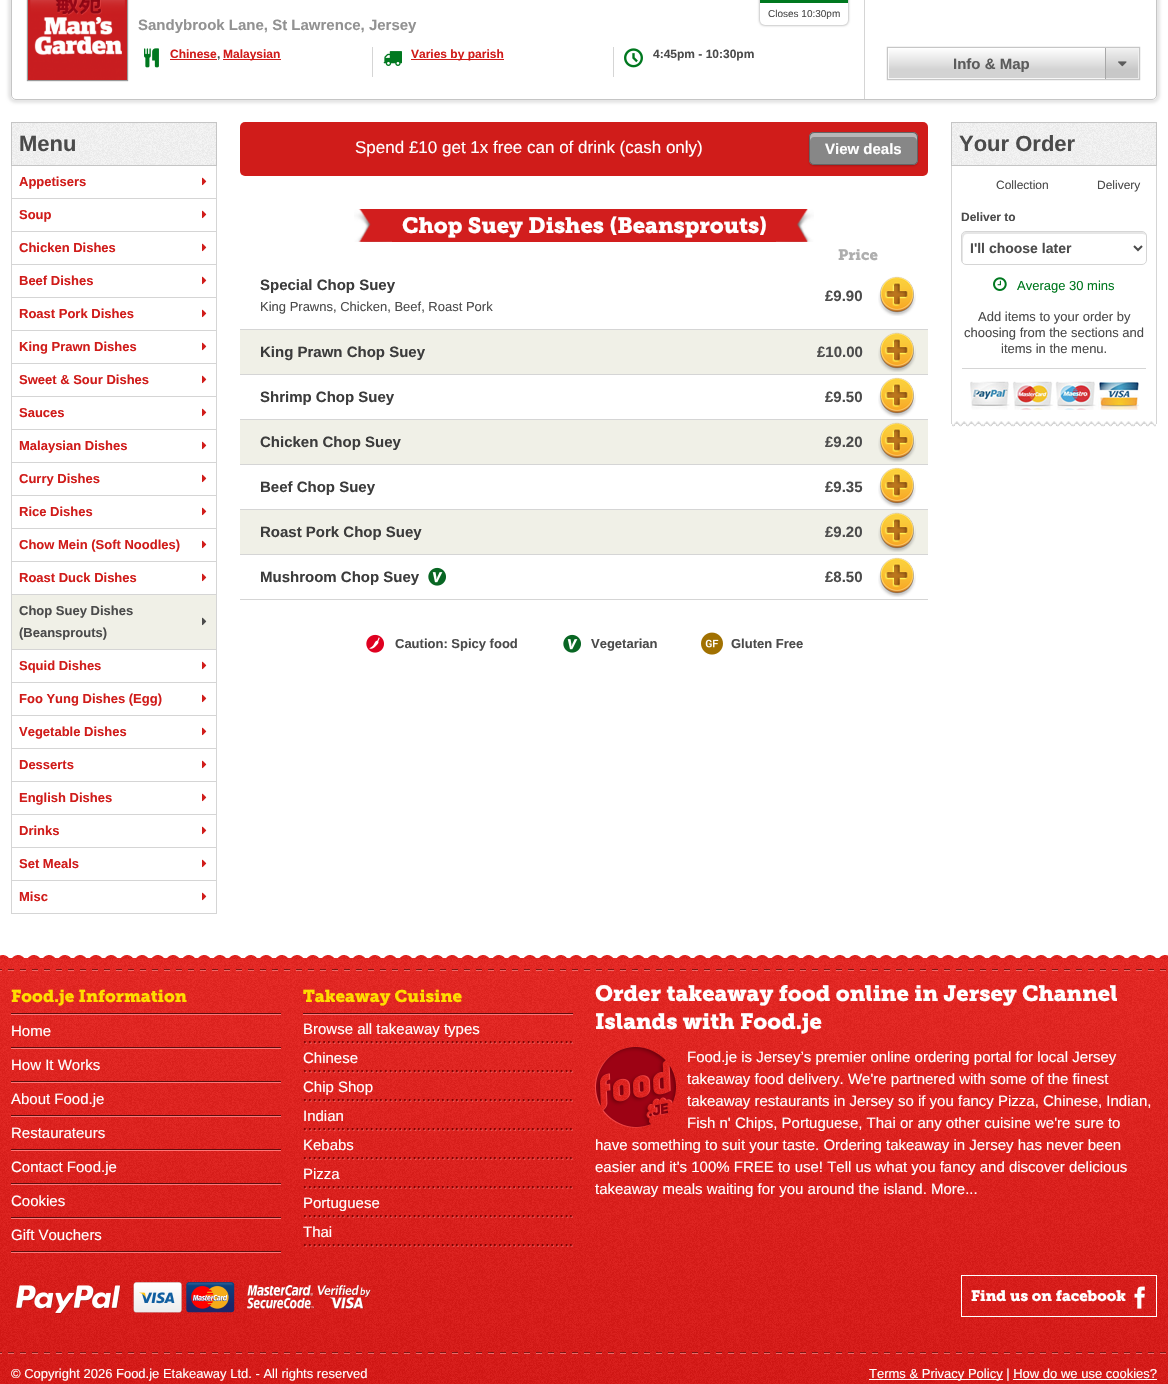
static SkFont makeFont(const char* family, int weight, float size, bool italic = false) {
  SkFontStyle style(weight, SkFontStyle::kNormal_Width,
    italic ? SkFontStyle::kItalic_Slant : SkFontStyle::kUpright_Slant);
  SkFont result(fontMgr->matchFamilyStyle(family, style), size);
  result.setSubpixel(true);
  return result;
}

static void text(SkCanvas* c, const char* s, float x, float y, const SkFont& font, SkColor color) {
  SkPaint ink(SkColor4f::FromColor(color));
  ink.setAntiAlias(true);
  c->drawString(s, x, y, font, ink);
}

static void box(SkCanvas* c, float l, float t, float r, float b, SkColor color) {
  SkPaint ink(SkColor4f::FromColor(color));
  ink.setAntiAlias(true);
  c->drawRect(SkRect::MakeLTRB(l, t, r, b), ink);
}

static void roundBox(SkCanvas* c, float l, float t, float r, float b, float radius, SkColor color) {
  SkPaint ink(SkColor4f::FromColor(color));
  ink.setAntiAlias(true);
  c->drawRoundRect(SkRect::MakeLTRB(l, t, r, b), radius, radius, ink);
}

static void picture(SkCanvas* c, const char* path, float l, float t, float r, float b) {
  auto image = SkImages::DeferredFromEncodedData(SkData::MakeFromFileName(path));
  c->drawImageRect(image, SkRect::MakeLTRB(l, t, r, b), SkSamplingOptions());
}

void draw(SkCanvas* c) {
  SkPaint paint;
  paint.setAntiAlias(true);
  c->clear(0xffffffff);
  c->save();
  c->clipPath(SkPathBuilder(SkPathFillType::kEvenOdd).moveTo(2, 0).lineTo(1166, 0).lineTo(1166, 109).lineTo(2, 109).close().moveTo(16, -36).lineTo(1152, -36).cubicTo(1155, -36, 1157, -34, 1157, -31).lineTo(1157, 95).cubicTo(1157, 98, 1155, 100, 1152, 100).lineTo(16, 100).cubicTo(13, 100, 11, 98, 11, 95).lineTo(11, -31).cubicTo(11, -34, 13, -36, 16, -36).close().detach(), true);
  paint.setColor(0x1a000000);
  paint.setMaskFilter(SkMaskFilter::MakeBlur(kNormal_SkBlurStyle, 1.5f));
  c->drawRoundRect(SkRect::MakeLTRB(8, -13, 1160, 103), 8, 8, paint);
  paint.setMaskFilter(nullptr);
  c->restore();
  paint.setColor(0xf2ffffff);
  c->drawRoundRect(SkRect::MakeLTRB(11.5f, -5.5f, 1156.5f, 99.5f), 4.5f, 4.5f, paint);
  paint.setStyle(SkPaint::kStroke_Style);
  paint.setStrokeWidth(1);
  paint.setColor(0xffc5c5c5);
  c->drawRoundRect(SkRect::MakeLTRB(11.5f, -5.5f, 1156.5f, 99.5f), 4.5f, 4.5f, paint);
  box(c, 864, 0, 865, 99, 0xffd5d5d5);
  paint.setStyle(SkPaint::kFill_Style);
  paint.setColor(0xffc9c9c9);
  paint.setMaskFilter(SkMaskFilter::MakeBlur(kNormal_SkBlurStyle, 1));
  c->drawRoundRect(SkRect::MakeLTRB(759, -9, 849, 26), 6, 6, paint);
  paint.setMaskFilter(nullptr);
  roundBox(c, 760, -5, 848, 25, 5, 0xffffffff);
  box(c, 760, 0, 848, 3, 0xff00781f);
  SkFont face1 = makeFont("Liberation Sans", 400, 10);
  text(c, "Closes 10:30pm", 768, 17, face1, 0xff4b4b4b);
  paint.setColor(0x66000000);
  paint.setMaskFilter(SkMaskFilter::MakeBlur(kNormal_SkBlurStyle, 0.5f));
  c->drawRect(SkRect::MakeLTRB(27, -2, 128, 81), paint);
  paint.setMaskFilter(nullptr);
  picture(c, "img_01.png", 28, 0, 127, 80);
  SkFont face2 = makeFont("Liberation Sans", 700, 15);
  text(c, "Sandybrook Lane, St Lawrence, Jersey", 138, 30, face2, 0xff929292);
  picture(c, "img_02.png", 144, 48, 159, 68);
  SkFont face3 = makeFont("Liberation Sans", 700, 12);
  text(c, "Chinese", 170, 58, face3, 0xffd01c1a);
  box(c, 170, 59, 217, 60, 0xffd01c1a);
  text(c, ",", 217, 58, face3, 0xff4b4b4b);
  box(c, 223, 59, 281, 60, 0xffd01c1a);
  text(c, "Malaysian", 223, 58, face3, 0xffd01c1a);
  box(c, 372, 47, 373, 77, 0xffd5d5d5);
  picture(c, "img_03.png", 383, 51, 402, 66);
  box(c, 411, 59, 504, 60, 0xffd01c1a);
  text(c, "Varies by parish", 411, 58, face3, 0xffd01c1a);
  box(c, 613, 47, 614, 77, 0xffd5d5d5);
  picture(c, "img_04.png", 624, 48, 643, 68);
  text(c, "4:45pm - 10:30pm", 653, 58, face3, 0xff4b4b4b);
  paint.setColor(0x4d000000);
  paint.setMaskFilter(SkMaskFilter::MakeBlur(kNormal_SkBlurStyle, 0.5f));
  c->drawRect(SkRect::MakeLTRB(887, 47, 1140, 80), paint);
  paint.setMaskFilter(nullptr);
  {
    const SkColor colors[] = {0xffffffff, 0xffd3d3d3};
    const float stops[] = {0, 0.7f};
    const SkPoint ends[] = {{1014, 48}, {1014, 79}};
    paint.setShader(SkGradientShader::MakeLinear(ends, colors, stops, 2, SkTileMode::kClamp));
    paint.setAlpha(255);
  }
  c->drawRect(SkRect::MakeLTRB(888, 48, 1139, 79), paint);
  paint.setStyle(SkPaint::kStroke_Style);
  paint.setShader(nullptr);
  paint.setColor(0xccffffff);
  c->drawRect(SkRect::MakeLTRB(888.5f, 48.5f, 1138.5f, 78.5f), paint);
  paint.setColor(0xffc6c6c6);
  c->drawRect(SkRect::MakeLTRB(887.5f, 47.5f, 1139.5f, 79.5f), paint);
  text(c, "Info & Map", 953, 69, face2, 0xff5b5b5b);
  box(c, 1106, 48, 1139, 79, 0x0d000000);
  box(c, 1105, 48, 1106, 79, 0xffa8a8a8);
  picture(c, "img_05.png", 1118, 61, 1127, 67);
  box(c, 12, 123, 216, 165, 0xfff6f6f6);
  picture(c, "img_06.png", 12, 123, 216, 165);
  paint.setColor(0xffc5c5c5);
  c->drawRect(SkRect::MakeLTRB(11.5f, 122.5f, 216.5f, 165.5f), paint);
  SkFont face4 = makeFont("Liberation Sans", 700, 22);
  text(c, "Menu", 19, 151, face4, 0xff4b4b4b);
  box(c, 216, 166, 217, 914, 0xffd5d5d5);
  box(c, 11, 913, 217, 914, 0xffd5d5d5);
  box(c, 11, 166, 12, 914, 0xffd5d5d5);
  box(c, 12, 198, 216, 199, 0xffd5d5d5);
  SkFont face5 = makeFont("Liberation Sans", 700, 13);
  text(c, "Appetisers", 19, 186, face5, 0xffd01c1a);
  picture(c, "img_07.png", 202, 177, 207, 186);
  box(c, 12, 231, 216, 232, 0xffd5d5d5);
  text(c, "Soup", 19, 219, face5, 0xffd01c1a);
  picture(c, "img_07.png", 202, 210, 207, 219);
  box(c, 12, 264, 216, 265, 0xffd5d5d5);
  text(c, "Chicken Dishes", 19, 252, face5, 0xffd01c1a);
  picture(c, "img_07.png", 202, 243, 207, 252);
  box(c, 12, 297, 216, 298, 0xffd5d5d5);
  text(c, "Beef Dishes", 19, 285, face5, 0xffd01c1a);
  picture(c, "img_07.png", 202, 276, 207, 285);
  box(c, 12, 330, 216, 331, 0xffd5d5d5);
  text(c, "Roast Pork Dishes", 19, 318, face5, 0xffd01c1a);
  picture(c, "img_07.png", 202, 309, 207, 318);
  box(c, 12, 363, 216, 364, 0xffd5d5d5);
  text(c, "King Prawn Dishes", 19, 351, face5, 0xffd01c1a);
  picture(c, "img_07.png", 202, 342, 207, 351);
  box(c, 12, 396, 216, 397, 0xffd5d5d5);
  text(c, "Sweet & Sour Dishes", 19, 384, face5, 0xffd01c1a);
  picture(c, "img_07.png", 202, 375, 207, 384);
  box(c, 12, 429, 216, 430, 0xffd5d5d5);
  text(c, "Sauces", 19, 417, face5, 0xffd01c1a);
  picture(c, "img_07.png", 202, 408, 207, 417);
  box(c, 12, 462, 216, 463, 0xffd5d5d5);
  text(c, "Malaysian Dishes", 19, 450, face5, 0xffd01c1a);
  picture(c, "img_07.png", 202, 441, 207, 450);
  box(c, 12, 495, 216, 496, 0xffd5d5d5);
  text(c, "Curry Dishes", 19, 483, face5, 0xffd01c1a);
  picture(c, "img_07.png", 202, 474, 207, 483);
  box(c, 12, 528, 216, 529, 0xffd5d5d5);
  text(c, "Rice Dishes", 19, 516, face5, 0xffd01c1a);
  picture(c, "img_07.png", 202, 507, 207, 516);
  box(c, 12, 561, 216, 562, 0xffd5d5d5);
  text(c, "Chow Mein (Soft Noodles)", 19, 549, face5, 0xffd01c1a);
  picture(c, "img_07.png", 202, 540, 207, 549);
  box(c, 12, 594, 216, 595, 0xffd5d5d5);
  text(c, "Roast Duck Dishes", 19, 582, face5, 0xffd01c1a);
  picture(c, "img_07.png", 202, 573, 207, 582);
  box(c, 12, 595, 216, 649, 0xfff0f0e7);
  box(c, 12, 649, 216, 650, 0xffd5d5d5);
  text(c, "Chop Suey Dishes", 19, 615, face5, 0xff4b4b4b);
  picture(c, "img_08.png", 202, 617, 207, 626);
  text(c, "(Beansprouts)", 19, 637, face5, 0xff4b4b4b);
  box(c, 12, 682, 216, 683, 0xffd5d5d5);
  text(c, "Squid Dishes", 19, 670, face5, 0xffd01c1a);
  picture(c, "img_07.png", 202, 661, 207, 670);
  box(c, 12, 715, 216, 716, 0xffd5d5d5);
  text(c, "Foo Yung Dishes (Egg)", 19, 703, face5, 0xffd01c1a);
  picture(c, "img_07.png", 202, 694, 207, 703);
  box(c, 12, 748, 216, 749, 0xffd5d5d5);
  text(c, "Vegetable Dishes", 19, 736, face5, 0xffd01c1a);
  picture(c, "img_07.png", 202, 727, 207, 736);
  box(c, 12, 781, 216, 782, 0xffd5d5d5);
  text(c, "Desserts", 19, 769, face5, 0xffd01c1a);
  picture(c, "img_07.png", 202, 760, 207, 769);
  box(c, 12, 814, 216, 815, 0xffd5d5d5);
  text(c, "English Dishes", 19, 802, face5, 0xffd01c1a);
  picture(c, "img_07.png", 202, 793, 207, 802);
  box(c, 12, 847, 216, 848, 0xffd5d5d5);
  text(c, "Drinks", 19, 835, face5, 0xffd01c1a);
  picture(c, "img_07.png", 202, 826, 207, 835);
  box(c, 12, 880, 216, 881, 0xffd5d5d5);
  text(c, "Set Meals", 19, 868, face5, 0xffd01c1a);
  picture(c, "img_07.png", 202, 859, 207, 868);
  text(c, "Misc", 19, 901, face5, 0xffd01c1a);
  picture(c, "img_07.png", 202, 892, 207, 901);
  box(c, 952, 123, 1156, 165, 0xfff6f6f6);
  picture(c, "img_06.png", 952, 123, 1156, 165);
  c->drawRect(SkRect::MakeLTRB(951.5f, 122.5f, 1156.5f, 165.5f), paint);
  text(c, "Your Order", 959, 151, face4, 0xff4b4b4b);
  box(c, 1156, 166, 1157, 424, 0xffd5d5d5);
  box(c, 951, 166, 952, 424, 0xffd5d5d5);
  SkFont face6 = makeFont("Liberation Sans", 400, 12);
  text(c, "Collection", 996, 189, face6, 0xff4b4b4b);
  text(c, "Delivery", 1097, 189, face6, 0xff4b4b4b);
  text(c, "Deliver to", 961, 221, face3, 0xff4b4b4b);
  paint.setStyle(SkPaint::kFill_Style);
  paint.setColor(0xffe6e6e6);
  c->drawPath(SkPathBuilder().moveTo(967, 234).lineTo(1143, 234).lineTo(1146, 235).cubicTo(1146, 234, 1144, 232, 1142, 232).lineTo(966, 232).cubicTo(964, 232, 962, 234, 962, 236).lineTo(962, 260).cubicTo(962, 261, 962, 262, 963, 263).lineTo(963, 242).cubicTo(963, 239, 963, 234, 967, 234).close().detach(), paint);
  paint.setStyle(SkPaint::kStroke_Style);
  paint.setColor(0xffd5d5d5);
  c->drawRoundRect(SkRect::MakeLTRB(961.5f, 231.5f, 1146.5f, 264.5f), 4.5f, 4.5f, paint);
  paint.setStrokeWidth(2);
  paint.setColor(0xff4b4b4b);
  c->drawPath(SkPathBuilder().moveTo(1134, 246).lineTo(1138, 250).lineTo(1142, 246).detach(), paint);
  SkFont face7 = makeFont("Liberation Sans", 700, 14);
  text(c, "I'll choose later", 970, 253, face7, 0xff4b4b4b);
  picture(c, "img_09.png", 993, 277, 1007, 291);
  SkFont face8 = makeFont("Liberation Sans", 400, 13);
  text(c, "Average 30 mins", 1017, 290, face8, 0xff00781f);
  box(c, 962, 368, 1146, 369, 0xffd5d5d5);
  text(c, "Add items to your order by", 978, 321, face8, 0xff4b4b4b);
  text(c, "choosing from the sections and", 964, 337, face8, 0xff4b4b4b);
  text(c, "items in the menu.", 1001, 353, face8, 0xff4b4b4b);
  picture(c, "img_10.png", 970, 381, 1139, 410);
  picture(c, "img_11.png", 952, 421, 1156, 427);
  roundBox(c, 240, 122, 928, 176, 5, 0xffd01c1a);
  SkFont face9 = makeFont("Liberation Sans", 400, 17);
  text(c, "Spend £10 get 1x free can of drink (cash only)", 355, 153, face9, 0xffffffff);
  paint.setStyle(SkPaint::kFill_Style);
  paint.setColor(0x33000000);
  paint.setMaskFilter(SkMaskFilter::MakeBlur(kNormal_SkBlurStyle, 1));
  c->drawRoundRect(SkRect::MakeLTRB(809, 133, 918, 166), 5, 5, paint);
  paint.setMaskFilter(nullptr);
  roundBox(c, 809, 132, 918, 165, 5, 0xff878787);
  paint.setColor(0xffb7b7b7);
  c->drawPath(SkPathBuilder().moveTo(814, 137).lineTo(913, 137).cubicTo(915, 137, 917, 139, 917, 141).lineTo(917, 137).cubicTo(917, 135, 915, 133, 913, 133).lineTo(814, 133).cubicTo(812, 133, 810, 135, 810, 137).lineTo(810, 141).cubicTo(810, 139, 812, 137, 814, 137).close().detach(), paint);
  paint.setStyle(SkPaint::kStroke_Style);
  paint.setStrokeWidth(1);
  paint.setColor(0xff646464);
  c->drawRoundRect(SkRect::MakeLTRB(809.5f, 132.5f, 917.5f, 164.5f), 4.5f, 4.5f, paint);
  text(c, "View deals", 825, 154, face2, 0xffffffff);
  box(c, 392, 209, 776, 242, 0xffd21e1e);
  picture(c, "img_12.png", 354, 209, 392, 242);
  SkFont face10 = makeFont("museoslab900", 400, 22);
  text(c, "Chop Suey Dishes (Beansprouts)", 402, 233, face10, 0xffffffff);
  picture(c, "img_13.png", 776, 209, 814, 242);
  SkFont face11 = makeFont("museoslab900", 400, 15);
  text(c, "Price", 838, 260, face11, 0xffaeaeae);
  box(c, 240, 329, 928, 330, 0xffd5d5d5);
  text(c, "Special Chop Suey", 260, 290, face2, 0xff3c3c3c);
  text(c, "King Prawns, Chicken, Beef, Roast Pork", 260, 311, face8, 0xff4b4b4b);
  text(c, "£9.90", 825, 301, face2, 0xff4b4b4b);
  picture(c, "img_14.png", 878, 276, 916, 316);
  box(c, 240, 374, 928, 375, 0xffd5d5d5);
  box(c, 240, 330, 928, 374, 0xfff0f0e7);
  text(c, "King Prawn Chop Suey", 260, 357, face2, 0xff3c3c3c);
  text(c, "£10.00", 817, 357, face2, 0xff4b4b4b);
  picture(c, "img_15.png", 878, 332, 916, 372);
  box(c, 240, 419, 928, 420, 0xffd5d5d5);
  text(c, "Shrimp Chop Suey", 260, 402, face2, 0xff3c3c3c);
  text(c, "£9.50", 825, 402, face2, 0xff4b4b4b);
  picture(c, "img_14.png", 878, 377, 916, 417);
  box(c, 240, 464, 928, 465, 0xffd5d5d5);
  box(c, 240, 420, 928, 464, 0xfff0f0e7);
  text(c, "Chicken Chop Suey", 260, 447, face2, 0xff3c3c3c);
  text(c, "£9.20", 825, 447, face2, 0xff4b4b4b);
  picture(c, "img_15.png", 878, 422, 916, 462);
  box(c, 240, 509, 928, 510, 0xffd5d5d5);
  text(c, "Beef Chop Suey", 260, 492, face2, 0xff3c3c3c);
  text(c, "£9.35", 825, 492, face2, 0xff4b4b4b);
  picture(c, "img_14.png", 878, 467, 916, 507);
  box(c, 240, 554, 928, 555, 0xffd5d5d5);
  box(c, 240, 510, 928, 554, 0xfff0f0e7);
  text(c, "Roast Pork Chop Suey", 260, 537, face2, 0xff3c3c3c);
  text(c, "£9.20", 825, 537, face2, 0xff4b4b4b);
  picture(c, "img_15.png", 878, 512, 916, 552);
  box(c, 240, 599, 928, 600, 0xffd5d5d5);
  text(c, "Mushroom Chop Suey", 260, 582, face2, 0xff3c3c3c);
  picture(c, "img_16.png", 428, 567, 446, 586);
  text(c, "£8.50", 825, 582, face2, 0xff4b4b4b);
  picture(c, "img_14.png", 878, 557, 916, 597);
  picture(c, "img_17.png", 366, 634, 384, 653);
  text(c, "Caution: Spicy food", 395, 648, face5, 0xff4b4b4b);
  picture(c, "img_16.png", 563, 634, 581, 653);
  text(c, "Vegetarian", 591, 648, face5, 0xff4b4b4b);
  picture(c, "img_18.png", 701, 632, 723, 655);
  text(c, "Gluten Free", 731, 648, face5, 0xff4b4b4b);
  picture(c, "img_19.png", 0, 958, 1168, 1384);
  picture(c, "img_20.png", 0, 955, 1168, 959);
  picture(c, "img_21.png", 0, 969, 1166, 971);
  box(c, 11, 1013, 281, 1014, 0xff5c0d0d);
  SkFont face12 = makeFont("museoslab900", 400, 17);
  text(c, "Food.je Information", 11, 1002, face12, 0xffffdd00);
  box(c, 11, 1014, 281, 1015, 0xffff7777);
  box(c, 11, 1048, 281, 1049, 0xffff7777);
  box(c, 11, 1047, 281, 1048, 0xff5c0d0d);
  SkFont face13 = makeFont("Liberation Sans", 400, 15);
  text(c, "Home", 11, 1036, face13, 0xffffffff);
  box(c, 11, 1082, 281, 1083, 0xffff7777);
  box(c, 11, 1081, 281, 1082, 0xff5c0d0d);
  text(c, "How It Works", 11, 1070, face13, 0xffffffff);
  box(c, 11, 1116, 281, 1117, 0xffff7777);
  box(c, 11, 1115, 281, 1116, 0xff5c0d0d);
  text(c, "About Food.je", 11, 1104, face13, 0xffffffff);
  box(c, 11, 1150, 281, 1151, 0xffff7777);
  box(c, 11, 1149, 281, 1150, 0xff5c0d0d);
  text(c, "Restaurateurs", 11, 1138, face13, 0xffffffff);
  box(c, 11, 1184, 281, 1185, 0xffff7777);
  box(c, 11, 1183, 281, 1184, 0xff5c0d0d);
  text(c, "Contact Food.je", 11, 1172, face13, 0xffffffff);
  box(c, 11, 1218, 281, 1219, 0xffff7777);
  box(c, 11, 1217, 281, 1218, 0xff5c0d0d);
  text(c, "Cookies", 11, 1206, face13, 0xffffffff);
  box(c, 11, 1252, 281, 1253, 0xffff7777);
  box(c, 11, 1251, 281, 1252, 0xff5c0d0d);
  text(c, "Gift Vouchers", 11, 1240, face13, 0xffffffff);
  box(c, 303, 1013, 573, 1014, 0xff5c0d0d);
  text(c, "Takeaway Cuisine", 303, 1002, face12, 0xffffdd00);
  box(c, 303, 1014, 573, 1015, 0xffff7777);
  picture(c, "img_22.png", 303, 1041, 573, 1044);
  text(c, "Browse all takeaway types", 303, 1034, face13, 0xffffffff);
  picture(c, "img_23.png", 303, 1070, 573, 1073);
  text(c, "Chinese", 303, 1063, face13, 0xffffffff);
  picture(c, "img_24.png", 303, 1099, 573, 1102);
  text(c, "Chip Shop", 303, 1092, face13, 0xffffffff);
  picture(c, "img_25.png", 303, 1128, 573, 1131);
  text(c, "Indian", 303, 1121, face13, 0xffffffff);
  picture(c, "img_26.png", 303, 1157, 573, 1160);
  text(c, "Kebabs", 303, 1150, face13, 0xffffffff);
  picture(c, "img_27.png", 303, 1186, 573, 1189);
  text(c, "Pizza", 303, 1179, face13, 0xffffffff);
  picture(c, "img_28.png", 303, 1215, 573, 1218);
  text(c, "Portuguese", 303, 1208, face13, 0xffffffff);
  picture(c, "img_29.png", 303, 1244, 573, 1247);
  text(c, "Thai", 303, 1237, face13, 0xffffffff);
  text(c, "Order takeaway food online in Jersey Channel", 595, 1001, face10, 0xffffffff);
  text(c, "Islands with Food.je", 595, 1029, face10, 0xffffffff);
  picture(c, "img_30.png", 595, 1047, 676, 1128);
  text(c, "Food.je is Jersey’s premier online ordering portal for local Jersey", 687, 1062, face13, 0xffffffff);
  text(c, "takeaway food delivery. We're partnered with some of the finest", 687, 1084, face13, 0xffffffff);
  text(c, "takeaway restaurants in Jersey so if you fancy Pizza, Chinese, Indian,", 687, 1106, face13, 0xffffffff);
  text(c, "Fish n' Chips, Portuguese, Thai or any other cuisine we're sure to", 687, 1128, face13, 0xffffffff);
  text(c, "have something to suit your taste. Ordering takeaway in Jersey has never been", 595, 1150, face13, 0xffffffff);
  text(c, "easier and it's 100% FREE to use! Tell us what you fancy and discover delicious", 595, 1172, face13, 0xffffffff);
  text(c, "takeaway meals waiting for you around the island. More...", 595, 1194, face13, 0xffffffff);
  picture(c, "img_31.png", 16, 1285, 121, 1314);
  picture(c, "img_32.png", 133, 1282, 235, 1313);
  picture(c, "img_33.png", 247, 1285, 371, 1309);
  paint.setColor(0xffffffff);
  c->drawRect(SkRect::MakeLTRB(961.5f, 1275.5f, 1156.5f, 1316.5f), paint);
  text(c, "Find us on facebook", 971, 1301, face11, 0xffffffff);
  picture(c, "img_34.png", 1134, 1286, 1145, 1309);
  picture(c, "img_35.png", 0, 1352, 1166, 1354);
  text(c, "© Copyright 2026 Food.je Etakeaway Ltd. - All rights reserved", 11, 1378, face8, 0xffffffff);
  box(c, 869, 1379, 1003, 1380, 0xffffffff);
  text(c, "Terms & Privacy Policy | How do we use cookies?", 869, 1378, face8, 0xffffffff);
  box(c, 1013, 1379, 1157, 1380, 0xffffffff);
}
